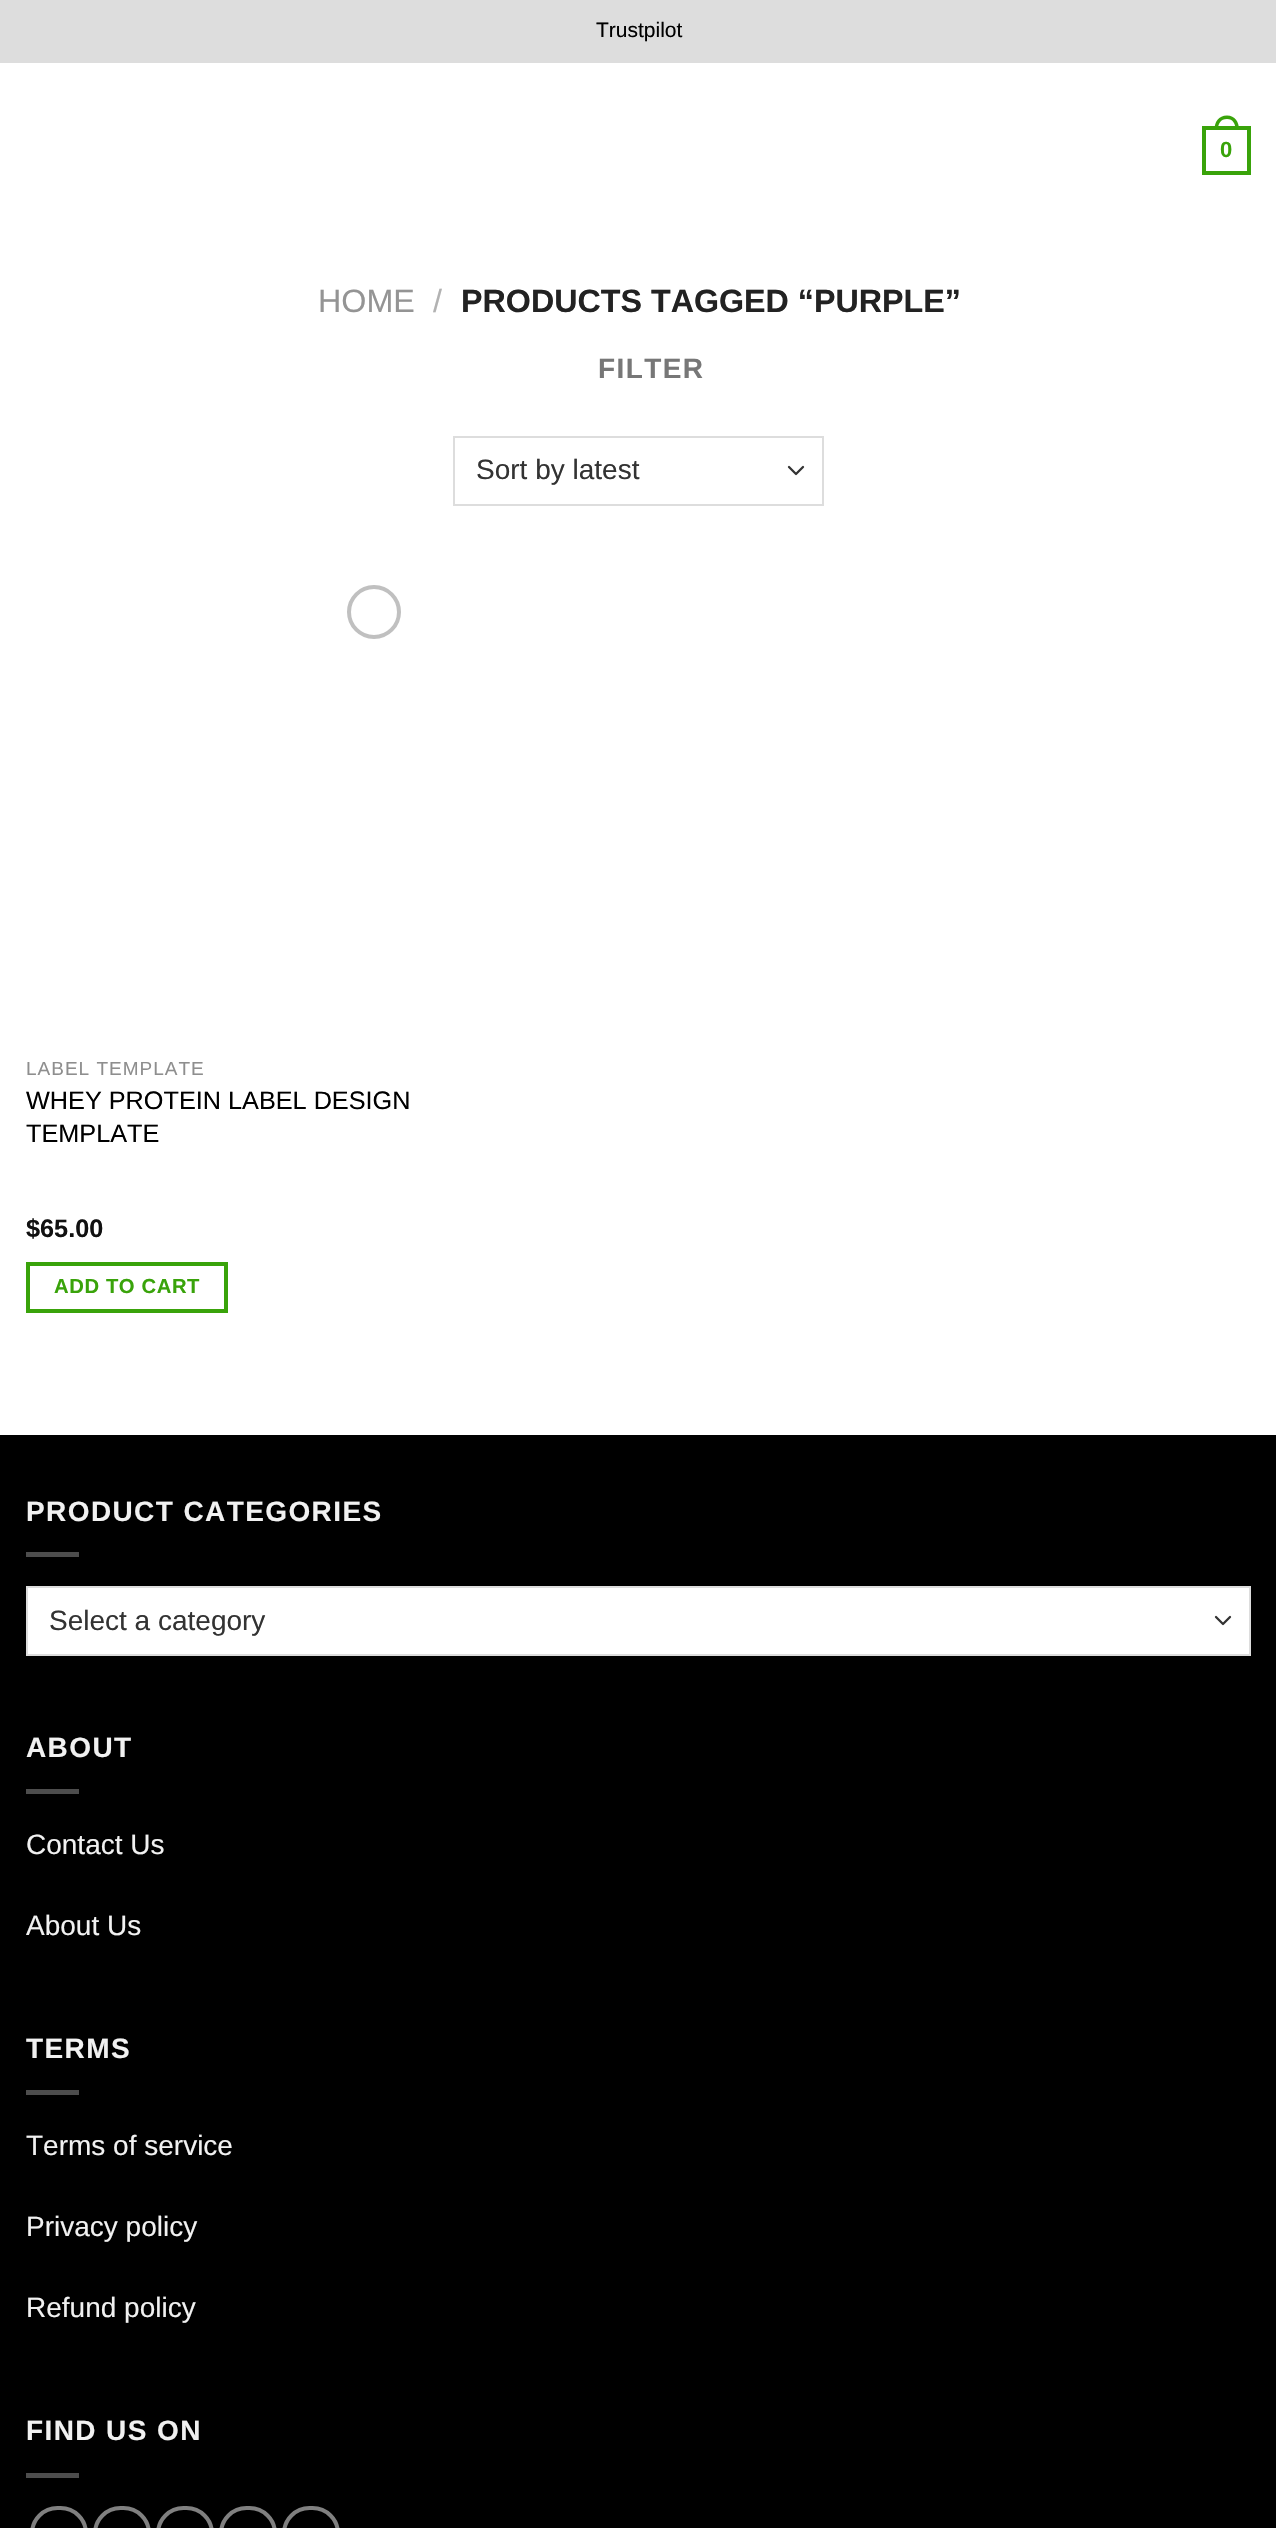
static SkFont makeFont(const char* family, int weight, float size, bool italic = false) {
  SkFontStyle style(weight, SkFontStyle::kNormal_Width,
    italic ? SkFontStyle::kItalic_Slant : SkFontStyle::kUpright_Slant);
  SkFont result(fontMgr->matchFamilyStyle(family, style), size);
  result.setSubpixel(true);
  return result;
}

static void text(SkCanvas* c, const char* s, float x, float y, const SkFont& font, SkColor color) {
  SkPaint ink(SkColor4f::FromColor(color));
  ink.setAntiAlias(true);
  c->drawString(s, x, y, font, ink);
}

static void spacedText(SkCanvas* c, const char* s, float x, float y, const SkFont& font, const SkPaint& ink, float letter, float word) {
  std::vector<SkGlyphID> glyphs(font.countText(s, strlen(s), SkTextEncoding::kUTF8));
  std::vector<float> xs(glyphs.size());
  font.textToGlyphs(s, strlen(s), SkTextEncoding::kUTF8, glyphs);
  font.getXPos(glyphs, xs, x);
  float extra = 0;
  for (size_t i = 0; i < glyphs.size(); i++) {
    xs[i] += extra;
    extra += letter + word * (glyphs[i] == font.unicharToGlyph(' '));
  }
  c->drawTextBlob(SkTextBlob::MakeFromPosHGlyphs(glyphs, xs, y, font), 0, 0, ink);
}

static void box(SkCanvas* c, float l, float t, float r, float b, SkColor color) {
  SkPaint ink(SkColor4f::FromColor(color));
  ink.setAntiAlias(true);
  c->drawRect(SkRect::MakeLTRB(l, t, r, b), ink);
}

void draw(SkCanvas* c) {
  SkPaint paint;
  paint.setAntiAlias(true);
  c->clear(0xffffffff);
  box(c, 0, 0, 1276, 63, 0xffdddddd);
  SkFont face1 = makeFont("Liberation Sans", 400, 21);
  text(c, "Trustpilot", 596, 37, face1, 0xff000000);
  paint.setStyle(SkPaint::kStroke_Style);
  paint.setStrokeWidth(4);
  paint.setColor(0xff39a30a);
  c->drawRect(SkRect::MakeLTRB(1204, 128, 1249, 173), paint);
  paint.setStyle(SkPaint::kFill_Style);
  c->drawPath(SkPathBuilder(SkPathFillType::kEvenOdd).moveTo(1227, 115.5f).cubicTo(1235, 115.5f, 1239, 122, 1239, 129.5f).lineTo(1214.5f, 129.5f).cubicTo(1214.5f, 122, 1218.5f, 115.5f, 1227, 115.5f).close().moveTo(1227, 119).cubicTo(1233, 119, 1235.5f, 124, 1235.5f, 129.5f).lineTo(1218, 129.5f).cubicTo(1218, 124, 1220.5f, 119, 1227, 119).close().detach(), paint);
  SkFont face2 = makeFont("Liberation Sans", 700, 22);
  text(c, "0", 1220, 157, face2, 0xff39a30a);
  SkFont face3 = makeFont("Liberation Sans", 400, 32.25f);
  text(c, "HOME", 318, 312, face3, 0xff949494);
  text(c, "/", 433, 312, face3, 0xffb2b2b2);
  SkFont face4 = makeFont("Liberation Sans", 700, 32.25f);
  text(c, "PRODUCTS TAGGED “PURPLE”", 461, 312, face4, 0xff222222);
  SkFont face5 = makeFont("Liberation Sans", 700, 28);
  paint.setColor(0xff777777);
  spacedText(c, "FILTER", 598, 378, face5, paint, 1.4f, 0);
  paint.setStyle(SkPaint::kStroke_Style);
  paint.setStrokeWidth(2.3f);
  paint.setStrokeCap(SkPaint::kRound_Cap);
  paint.setStrokeJoin(SkPaint::kRound_Join);
  paint.setColor(0xff333333);
  c->drawPath(SkPathBuilder().moveTo(789, 467).lineTo(796, 474).lineTo(803, 467).detach(), paint);
  paint.setStrokeWidth(2);
  paint.setStrokeCap(SkPaint::kButt_Cap);
  paint.setStrokeJoin(SkPaint::kMiter_Join);
  paint.setColor(0xffdddddd);
  c->drawRect(SkRect::MakeLTRB(454, 437, 823, 505), paint);
  SkFont face6 = makeFont("Liberation Sans", 400, 28);
  text(c, "Sort by latest", 476, 479, face6, 0xff333333);
  paint.setStrokeWidth(4);
  paint.setColor(0xffc0c0c0);
  c->drawCircle(374, 612, 25, paint);
  SkFont face7 = makeFont("Liberation Sans", 400, 19);
  paint.setStyle(SkPaint::kFill_Style);
  paint.setColor(0xff8e8e8e);
  spacedText(c, "LABEL TEMPLATE", 26, 1075, face7, paint, 1, 0);
  SkFont face8 = makeFont("Liberation Sans", 400, 25.25f);
  text(c, "WHEY PROTEIN LABEL DESIGN", 26, 1109, face8, 0xff000000);
  text(c, "TEMPLATE", 26, 1142, face8, 0xff000000);
  SkFont face9 = makeFont("Liberation Sans", 700, 25.25f);
  text(c, "$65.00", 26, 1237, face9, 0xff111111);
  paint.setStyle(SkPaint::kStroke_Style);
  paint.setColor(0xff39a30a);
  c->drawRect(SkRect::MakeLTRB(28, 1264, 226, 1311), paint);
  SkFont face10 = makeFont("Liberation Sans", 700, 20.25f);
  paint.setStyle(SkPaint::kFill_Style);
  spacedText(c, "ADD TO CART", 54, 1293, face10, paint, 0.6f, 0);
  box(c, 0, 1435, 1276, 2528, 0xff000000);
  paint.setColor(0xfff1f1f1);
  spacedText(c, "PRODUCT CATEGORIES", 26, 1521, face5, paint, 1.4f, 0);
  box(c, 26, 1552, 79, 1557, 0xff4d4d4d);
  box(c, 28, 1588, 1249, 1654, 0xffffffff);
  paint.setStyle(SkPaint::kStroke_Style);
  paint.setStrokeWidth(2.3f);
  paint.setStrokeCap(SkPaint::kRound_Cap);
  paint.setStrokeJoin(SkPaint::kRound_Join);
  paint.setColor(0xff333333);
  c->drawPath(SkPathBuilder().moveTo(1216, 1617).lineTo(1223, 1624).lineTo(1230, 1617).detach(), paint);
  paint.setStrokeWidth(2);
  paint.setStrokeCap(SkPaint::kButt_Cap);
  paint.setStrokeJoin(SkPaint::kMiter_Join);
  paint.setColor(0xffdddddd);
  c->drawRect(SkRect::MakeLTRB(27, 1587, 1250, 1655), paint);
  text(c, "Select a category", 49, 1630, face6, 0xff333333);
  paint.setStyle(SkPaint::kFill_Style);
  paint.setColor(0xfff1f1f1);
  spacedText(c, "ABOUT", 26, 1757, face5, paint, 1.4f, 0);
  box(c, 26, 1789, 79, 1794, 0xff4d4d4d);
  text(c, "Contact Us", 26, 1854, face6, 0xfff1f1f1);
  text(c, "About Us", 26, 1935, face6, 0xfff1f1f1);
  spacedText(c, "TERMS", 26, 2058, face5, paint, 1.4f, 0);
  box(c, 26, 2090, 79, 2095, 0xff4d4d4d);
  text(c, "Terms of service", 26, 2155, face6, 0xfff1f1f1);
  text(c, "Privacy policy", 26, 2236, face6, 0xfff1f1f1);
  text(c, "Refund policy", 26, 2317, face6, 0xfff1f1f1);
  spacedText(c, "FIND US ON", 26, 2440, face5, paint, 1.4f, 0);
  box(c, 26, 2473, 79, 2478, 0xff4d4d4d);
  paint.setStyle(SkPaint::kStroke_Style);
  paint.setStrokeWidth(4);
  paint.setColor(0xff808080);
  c->drawRoundRect(SkRect::MakeLTRB(32, 2508, 86, 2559), 27, 27, paint);
  c->drawRoundRect(SkRect::MakeLTRB(95, 2508, 149, 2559), 27, 27, paint);
  c->drawRoundRect(SkRect::MakeLTRB(158, 2508, 212, 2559), 27, 27, paint);
  c->drawRoundRect(SkRect::MakeLTRB(221, 2508, 275, 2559), 27, 27, paint);
  c->drawRoundRect(SkRect::MakeLTRB(284, 2508, 338, 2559), 27, 27, paint);
}
